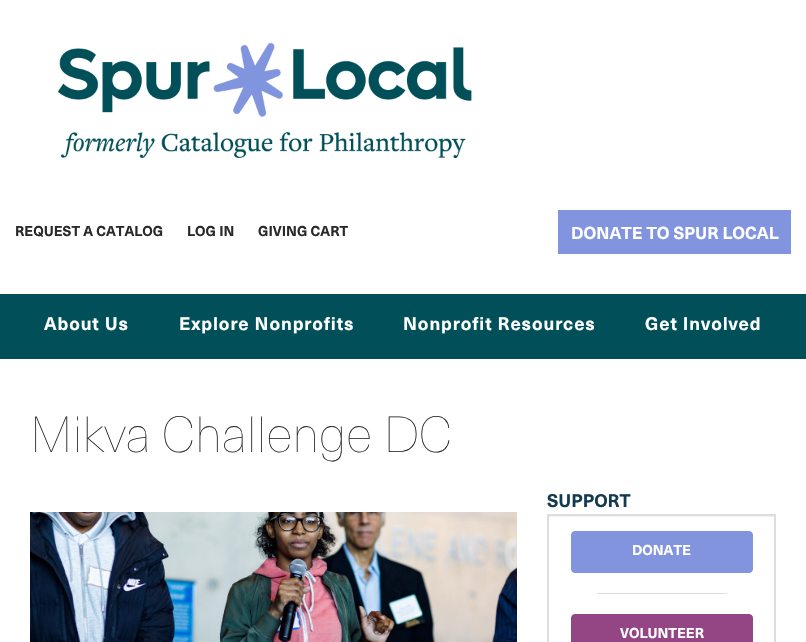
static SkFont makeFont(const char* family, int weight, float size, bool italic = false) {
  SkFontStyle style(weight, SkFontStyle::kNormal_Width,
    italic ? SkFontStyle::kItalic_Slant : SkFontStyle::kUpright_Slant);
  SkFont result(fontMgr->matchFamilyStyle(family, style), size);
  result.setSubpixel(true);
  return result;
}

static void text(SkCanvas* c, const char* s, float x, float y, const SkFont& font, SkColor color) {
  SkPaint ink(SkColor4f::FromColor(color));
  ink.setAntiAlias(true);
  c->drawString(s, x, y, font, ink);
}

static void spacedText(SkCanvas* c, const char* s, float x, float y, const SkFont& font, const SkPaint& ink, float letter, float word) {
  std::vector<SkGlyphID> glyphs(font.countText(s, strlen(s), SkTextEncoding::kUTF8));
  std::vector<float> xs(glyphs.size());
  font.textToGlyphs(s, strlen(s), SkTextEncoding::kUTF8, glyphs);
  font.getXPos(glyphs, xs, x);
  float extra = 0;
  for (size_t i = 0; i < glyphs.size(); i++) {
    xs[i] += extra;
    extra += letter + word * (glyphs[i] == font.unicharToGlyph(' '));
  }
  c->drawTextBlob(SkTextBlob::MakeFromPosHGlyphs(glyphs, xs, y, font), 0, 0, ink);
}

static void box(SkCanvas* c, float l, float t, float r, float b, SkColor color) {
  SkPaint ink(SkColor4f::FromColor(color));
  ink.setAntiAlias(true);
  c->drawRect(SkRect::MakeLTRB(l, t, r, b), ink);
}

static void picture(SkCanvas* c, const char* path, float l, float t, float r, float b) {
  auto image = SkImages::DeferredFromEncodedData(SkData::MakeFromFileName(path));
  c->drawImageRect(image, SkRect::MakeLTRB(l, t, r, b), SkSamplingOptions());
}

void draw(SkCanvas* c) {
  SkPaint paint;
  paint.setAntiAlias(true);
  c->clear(0xffffffff);
  picture(c, "img_01.png", 57, 42, 472, 159);
  SkFont face1 = makeFont("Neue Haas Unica", 700, 14);
  text(c, "REQUEST A CATALOG", 15, 236, face1, 0xff292929);
  text(c, "LOG IN", 187, 236, face1, 0xff292929);
  text(c, "GIVING CART", 258, 236, face1, 0xff292929);
  box(c, 558, 210, 791, 254, 0xff8194dd);
  SkFont face2 = makeFont("Neue Haas Unica", 700, 17);
  text(c, "DONATE TO SPUR LOCAL", 571, 239, face2, 0xffffffff);
  box(c, 0, 294, 806, 359, 0xff004f59);
  SkFont face3 = makeFont("Neue Haas Unica", 700, 18);
  paint.setColor(0xffffffff);
  spacedText(c, "About Us", 44, 330, face3, paint, 0.9f, 0);
  spacedText(c, "Explore Nonprofits", 179, 330, face3, paint, 0.9f, 0);
  spacedText(c, "Nonprofit Resources", 403, 330, face3, paint, 0.9f, 0);
  spacedText(c, "Get Involved", 645, 330, face3, paint, 0.9f, 0);
  SkFont face4 = makeFont("Neue Haas Unica", 100, 50);
  text(c, "Mikva Challenge DC", 30, 452, face4, 0xff292929);
  picture(c, "img_02.png", 30, 512, 517, 642);
  text(c, "SUPPORT", 547, 507, face3, 0xff143a50);
  box(c, 549, 516, 774, 517, 0xfff2f2f2);
  paint.setStyle(SkPaint::kStroke_Style);
  paint.setStrokeWidth(2);
  paint.setColor(0xffdddddd);
  c->drawRect(SkRect::MakeLTRB(548, 515, 775, 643), paint);
  paint.setStyle(SkPaint::kFill_Style);
  paint.setColor(0xff8194dd);
  c->drawRoundRect(SkRect::MakeLTRB(571.5f, 531.5f, 752.5f, 572.5f), 3.5f, 3.5f, paint);
  paint.setStyle(SkPaint::kStroke_Style);
  paint.setStrokeWidth(1);
  c->drawRoundRect(SkRect::MakeLTRB(571.5f, 531.5f, 752.5f, 572.5f), 3.5f, 3.5f, paint);
  text(c, "DONATE", 632, 555, face1, 0xffffffff);
  box(c, 597, 593, 727, 594, 0xffdddddd);
  paint.setStyle(SkPaint::kFill_Style);
  paint.setColor(0xff934683);
  c->drawRoundRect(SkRect::MakeLTRB(571.5f, 614.5f, 752.5f, 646.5f), 3.5f, 3.5f, paint);
  paint.setStyle(SkPaint::kStroke_Style);
  c->drawRoundRect(SkRect::MakeLTRB(571.5f, 614.5f, 752.5f, 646.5f), 3.5f, 3.5f, paint);
  text(c, "VOLUNTEER", 620, 638, face1, 0xffffffff);
}
